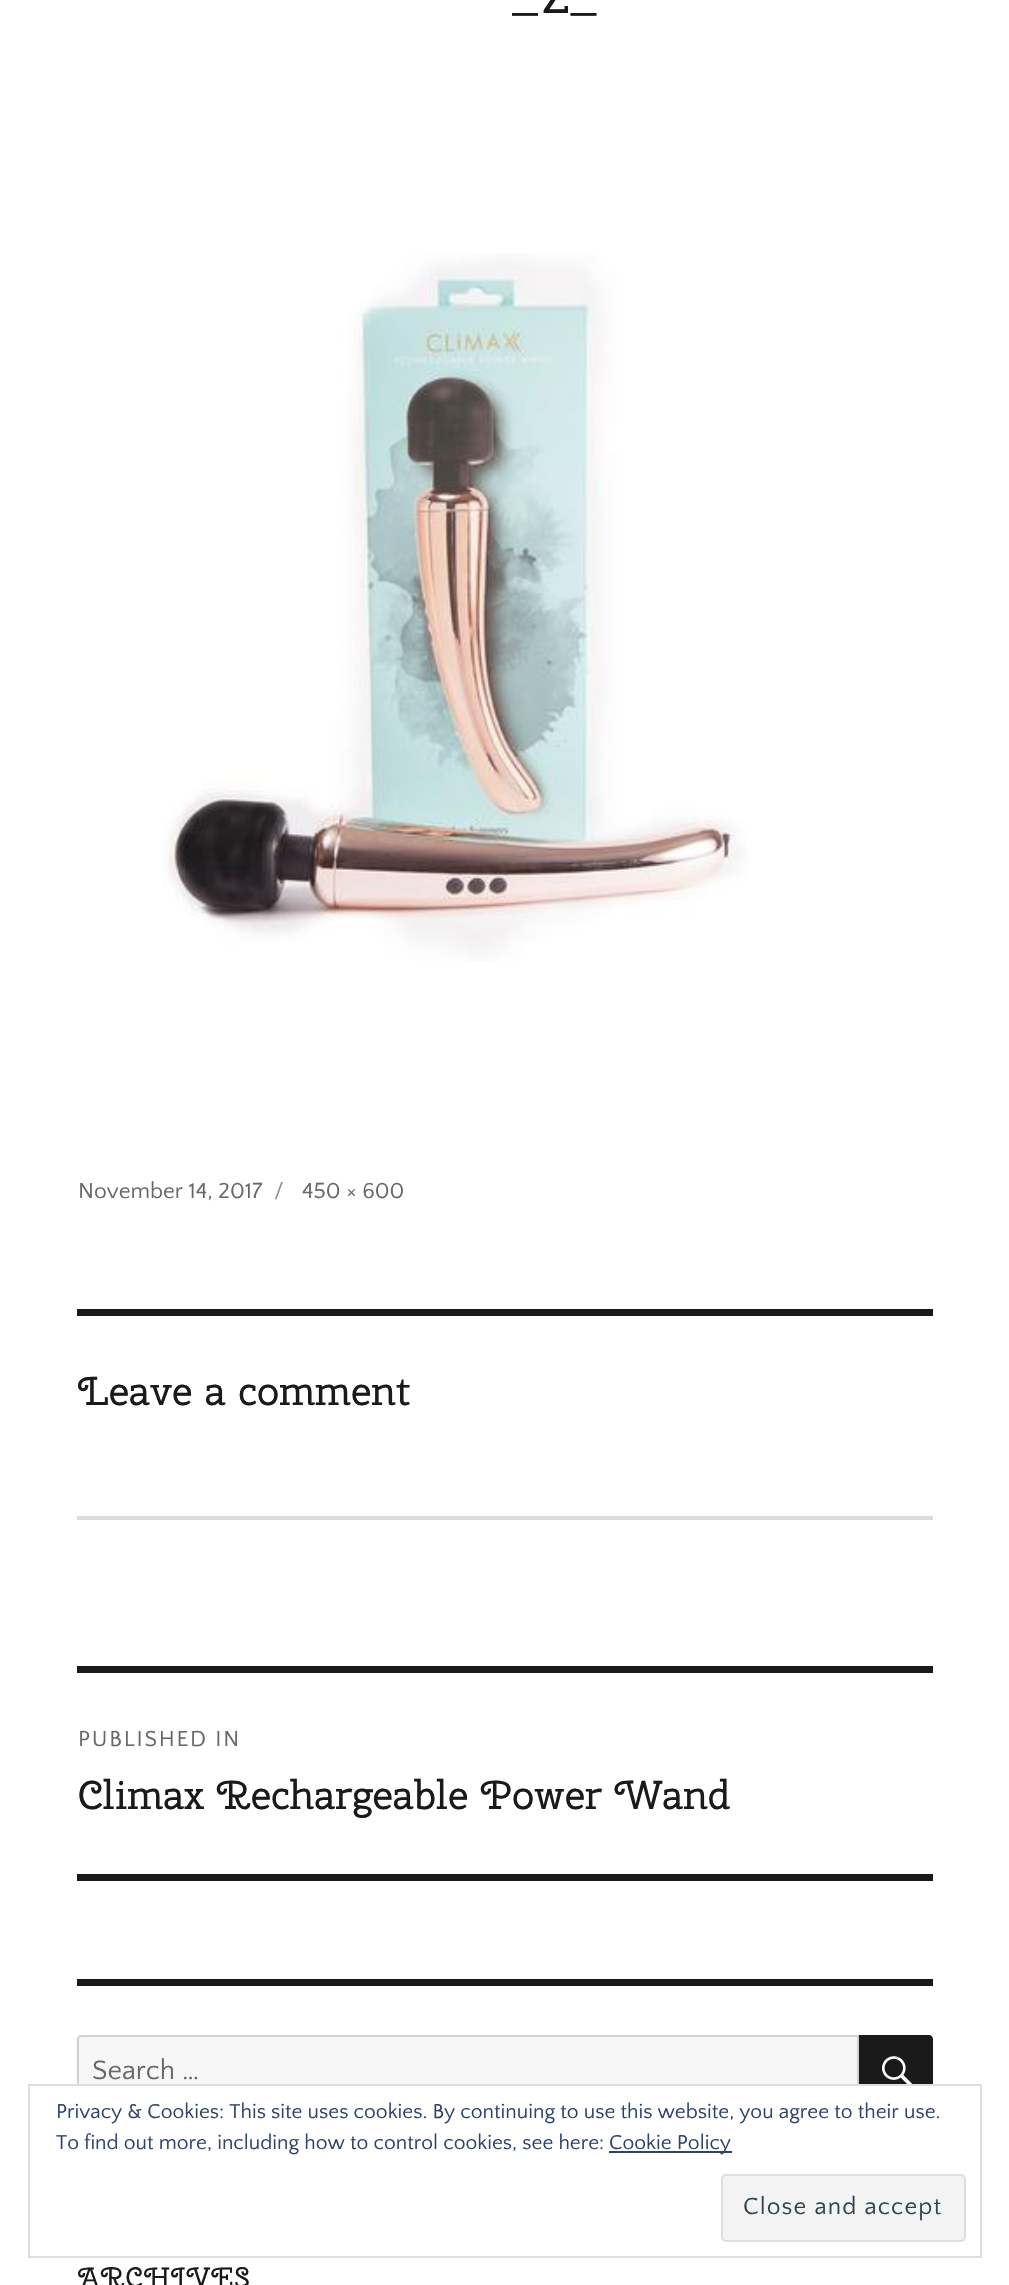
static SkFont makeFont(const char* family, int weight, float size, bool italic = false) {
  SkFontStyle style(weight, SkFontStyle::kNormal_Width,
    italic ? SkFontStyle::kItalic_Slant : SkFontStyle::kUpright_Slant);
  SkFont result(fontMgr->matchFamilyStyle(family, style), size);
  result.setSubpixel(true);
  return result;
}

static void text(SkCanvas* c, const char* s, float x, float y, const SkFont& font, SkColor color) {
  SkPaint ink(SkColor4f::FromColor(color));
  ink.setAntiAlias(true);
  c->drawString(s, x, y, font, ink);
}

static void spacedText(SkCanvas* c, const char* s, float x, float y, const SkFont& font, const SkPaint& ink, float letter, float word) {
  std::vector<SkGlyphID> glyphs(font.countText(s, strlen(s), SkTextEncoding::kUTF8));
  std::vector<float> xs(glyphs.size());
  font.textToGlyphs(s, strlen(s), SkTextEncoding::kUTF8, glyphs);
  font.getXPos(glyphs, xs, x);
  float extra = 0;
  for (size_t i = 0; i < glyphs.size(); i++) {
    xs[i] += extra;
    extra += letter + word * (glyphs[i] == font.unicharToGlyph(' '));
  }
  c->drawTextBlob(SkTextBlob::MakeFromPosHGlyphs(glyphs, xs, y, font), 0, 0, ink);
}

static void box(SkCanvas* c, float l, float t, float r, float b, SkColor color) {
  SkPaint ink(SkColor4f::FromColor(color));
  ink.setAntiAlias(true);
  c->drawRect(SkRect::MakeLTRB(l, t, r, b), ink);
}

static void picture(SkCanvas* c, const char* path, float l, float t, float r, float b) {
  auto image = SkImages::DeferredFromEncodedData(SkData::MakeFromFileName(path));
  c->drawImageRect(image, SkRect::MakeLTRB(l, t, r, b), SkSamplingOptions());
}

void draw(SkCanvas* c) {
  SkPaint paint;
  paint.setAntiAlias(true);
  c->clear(0xffffffff);
  SkFont face1 = makeFont("Cherry Swash", 400, 49);
  text(c, "_Z_", 512, 13, face1, 0xff1a1a1a);
  picture(c, "img_01.png", 163, 253, 748, 961);
  SkFont face2 = makeFont("Quattrocento Sans", 400, 22.75f);
  text(c, "November 14, 2017", 78, 1198, face2, 0xff686868);
  text(c, "/", 274, 1198, face2, 0xff959595);
  text(c, "450 × 600", 302, 1198, face2, 0xff686868);
  box(c, 77, 1309, 933, 1316, 0xff1a1a1a);
  SkFont face3 = makeFont("Cherry Swash", 400, 40.25f);
  text(c, "Leave a comment", 78, 1405, face3, 0xff1a1a1a);
  box(c, 77, 1516, 933, 1520, 0xffdcdcde);
  box(c, 77, 1666, 933, 1673, 0xff1a1a1a);
  box(c, 77, 1874, 933, 1881, 0xff1a1a1a);
  paint.setColor(0xff686868);
  spacedText(c, "PUBLISHED IN", 78, 1746, face2, paint, 1.75f, 0);
  text(c, "Climax Rechargeable Power Wand", 78, 1809, face3, 0xff1a1a1a);
  box(c, 77, 1979, 933, 1986, 0xff1a1a1a);
  paint.setColor(0xfff7f7f7);
  c->drawPath(SkPathBuilder().moveTo(81, 2036).lineTo(858, 2036).lineTo(858, 2104).lineTo(81, 2104).cubicTo(79.5f, 2104, 78, 2102.5f, 78, 2101).lineTo(78, 2039).cubicTo(78, 2037.5f, 79.5f, 2036, 81, 2036).close().detach(), paint);
  paint.setStyle(SkPaint::kStroke_Style);
  paint.setStrokeWidth(2);
  paint.setColor(0xffd1d1d1);
  c->drawPath(SkPathBuilder().moveTo(81, 2036).lineTo(858, 2036).lineTo(858, 2104).lineTo(81, 2104).cubicTo(79.5f, 2104, 78, 2102.5f, 78, 2101).lineTo(78, 2039).cubicTo(78, 2037.5f, 79.5f, 2036, 81, 2036).close().detach(), paint);
  SkFont face4 = makeFont("Quattrocento Sans", 400, 28);
  text(c, "Search …", 92, 2079, face4, 0xff686868);
  paint.setStyle(SkPaint::kFill_Style);
  paint.setColor(0xff1a1a1a);
  c->drawPath(SkPathBuilder().moveTo(859, 2035).lineTo(929, 2035).cubicTo(931, 2035, 933, 2037, 933, 2039).lineTo(933, 2101).cubicTo(933, 2103, 931, 2105, 929, 2105).lineTo(859, 2105).close().detach(), paint);
  picture(c, "img_02.png", 882, 2056, 913, 2084);
  SkFont face5 = makeFont("Cherry Swash", 400, 28);
  spacedText(c, "ARCHIVES", 78, 2287, face5, paint, 1.25f, 0);
  box(c, 77, 2086, 933, 2105, 0xffffffff);
  paint.setStyle(SkPaint::kStroke_Style);
  paint.setColor(0xffdedede);
  c->drawRect(SkRect::MakeLTRB(29, 2085, 981, 2257), paint);
  SkFont face6 = makeFont("Quattrocento Sans", 400, 21);
  text(c, "Privacy & Cookies: This site uses cookies. By continuing to use this website, you agree to their use.", 56, 2118, face6, 0xff2e4467);
  text(c, "To find out more, including how to control cookies, see here:", 56, 2149, face6, 0xff2e4467);
  box(c, 609, 2151, 732, 2153, 0xff2e4467);
  text(c, "Cookie Policy", 609, 2149, face6, 0xff2e4467);
  paint.setStyle(SkPaint::kFill_Style);
  paint.setColor(0xfff3f3f3);
  c->drawRoundRect(SkRect::MakeLTRB(722, 2175, 965, 2241), 4, 4, paint);
  paint.setStyle(SkPaint::kStroke_Style);
  paint.setColor(0xffdedede);
  c->drawRoundRect(SkRect::MakeLTRB(722, 2175, 965, 2241), 4, 4, paint);
  SkFont face7 = makeFont("Quattrocento Sans", 400, 24.5f);
  paint.setStyle(SkPaint::kFill_Style);
  paint.setColor(0xff2e4453);
  spacedText(c, "Close and accept", 743, 2214, face7, paint, 1.1f, 0);
}
